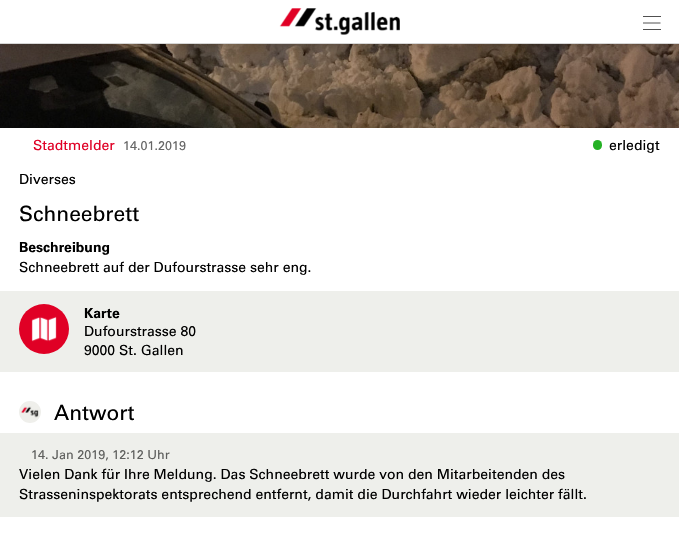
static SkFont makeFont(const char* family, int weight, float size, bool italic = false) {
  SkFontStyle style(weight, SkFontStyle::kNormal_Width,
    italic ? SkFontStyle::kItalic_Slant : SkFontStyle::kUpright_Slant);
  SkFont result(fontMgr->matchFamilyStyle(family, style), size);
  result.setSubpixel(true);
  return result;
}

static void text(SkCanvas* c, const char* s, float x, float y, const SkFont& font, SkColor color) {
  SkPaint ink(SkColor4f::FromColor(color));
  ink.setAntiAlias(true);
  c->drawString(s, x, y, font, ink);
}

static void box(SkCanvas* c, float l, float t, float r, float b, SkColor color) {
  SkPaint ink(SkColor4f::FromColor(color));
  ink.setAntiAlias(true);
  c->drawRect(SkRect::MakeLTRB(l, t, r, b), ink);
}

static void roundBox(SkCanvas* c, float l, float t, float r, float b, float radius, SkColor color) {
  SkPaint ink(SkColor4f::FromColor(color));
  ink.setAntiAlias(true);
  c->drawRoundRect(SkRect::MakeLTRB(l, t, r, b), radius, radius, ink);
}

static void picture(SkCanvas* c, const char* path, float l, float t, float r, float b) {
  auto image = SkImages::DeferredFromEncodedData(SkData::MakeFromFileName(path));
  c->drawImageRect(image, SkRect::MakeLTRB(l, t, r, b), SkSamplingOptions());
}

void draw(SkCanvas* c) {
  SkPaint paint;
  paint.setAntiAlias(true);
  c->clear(0xffffffff);
  picture(c, "img_02.png", 0, 44, 679, 128);
  paint.setColor(0x33000000);
  paint.setMaskFilter(SkMaskFilter::MakeBlur(kNormal_SkBlurStyle, 5));
  c->drawRect(SkRect::MakeLTRB(0, 0, 679, 44), paint);
  paint.setMaskFilter(nullptr);
  box(c, 0, 0, 679, 43, 0xffffffff);
  box(c, 0, 43, 679, 44, 0xffd6d6d6);
  picture(c, "img_01.png", 279, 8, 400, 35);
  box(c, 643, 16, 661, 17, 0xff505050);
  paint.setStyle(SkPaint::kStroke_Style);
  paint.setStrokeWidth(0.8f);
  paint.setStrokeJoin(SkPaint::kRound_Join);
  paint.setColor(0xff242424);
  c->drawPath(SkPathBuilder().moveTo(643, 23).lineTo(660.5f, 23).detach(), paint);
  box(c, 643, 29, 661, 30, 0xff505050);
  SkFont face1 = makeFont("Univers", 400, 14);
  text(c, "Stadtmelder", 33, 150, face1, 0xffe00025);
  SkFont face2 = makeFont("Univers", 400, 12.6f);
  text(c, "14.01.2019", 123, 150, face2, 0xff666666);
  roundBox(c, 593, 140, 602, 150, 4.5f, 0xff25b125);
  text(c, "erledigt", 609, 150, face1, 0xff000000);
  text(c, "Diverses", 19, 184, face1, 0xff000000);
  SkFont face3 = makeFont("Univers", 400, 21);
  text(c, "Schneebrett", 19, 221, face3, 0xff000000);
  SkFont face4 = makeFont("Univers", 700, 14);
  text(c, "Beschreibung", 19, 252, face4, 0xff000000);
  text(c, "Schneebrett auf der Dufourstrasse sehr eng.", 19, 272, face1, 0xff000000);
  box(c, 0, 291, 679, 372, 0xffeeefeb);
  paint.setStyle(SkPaint::kFill_Style);
  paint.setColor(0xffe00025);
  c->drawCircle(44, 329, 25, paint);
  picture(c, "img_03.png", 31, 316, 57, 342);
  text(c, "Karte", 84, 318, face4, 0xff000000);
  text(c, "Dufourstrasse 80", 84, 336, face1, 0xff000000);
  text(c, "9000 St. Gallen", 84, 355, face1, 0xff000000);
  picture(c, "img_04.png", 19, 401, 41, 423);
  text(c, "Antwort", 54, 420, face3, 0xff000000);
  box(c, 0, 433, 679, 517, 0xffeeefeb);
  text(c, "14. Jan 2019, 12:12 Uhr", 31, 459, face2, 0xff5f605e);
  text(c, "Vielen Dank für Ihre Meldung. Das Schneebrett wurde von den Mitarbeitenden des", 19, 479, face1, 0xff000000);
  text(c, "Strasseninspektorats entsprechend entfernt, damit die Durchfahrt wieder leichter fällt.", 19, 499, face1, 0xff000000);
}
